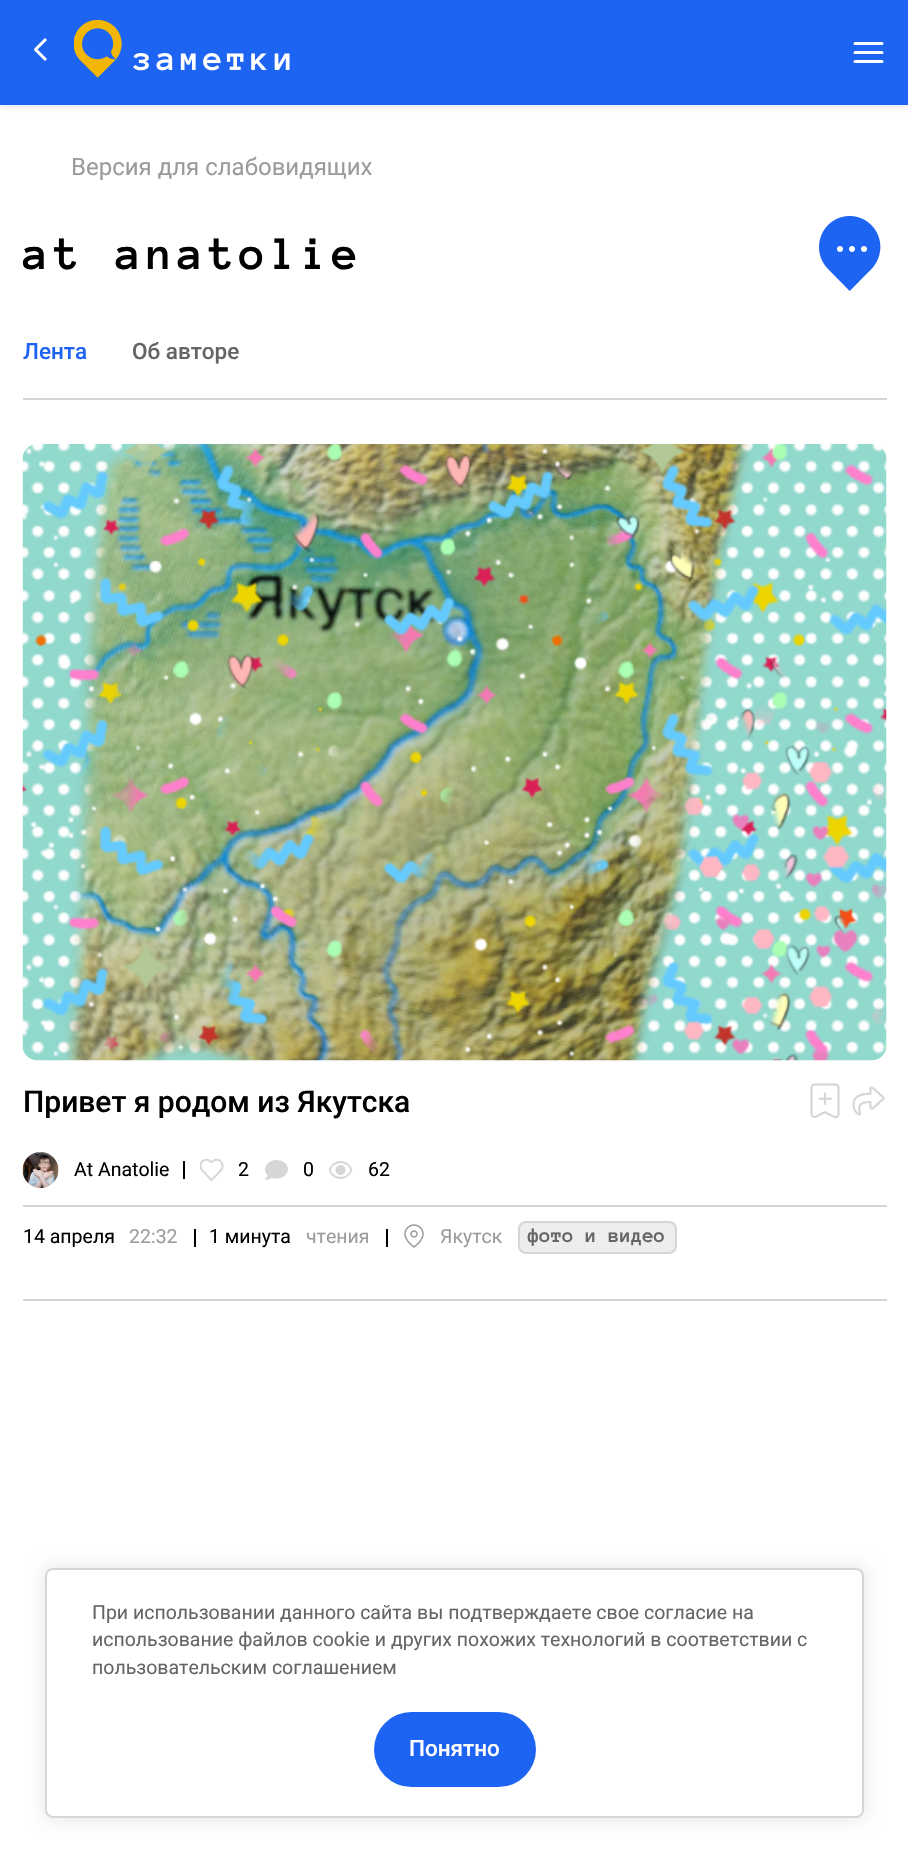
static SkFont makeFont(const char* family, int weight, float size, bool italic = false) {
  SkFontStyle style(weight, SkFontStyle::kNormal_Width,
    italic ? SkFontStyle::kItalic_Slant : SkFontStyle::kUpright_Slant);
  SkFont result(fontMgr->matchFamilyStyle(family, style), size);
  result.setSubpixel(true);
  return result;
}

static void text(SkCanvas* c, const char* s, float x, float y, const SkFont& font, SkColor color) {
  SkPaint ink(SkColor4f::FromColor(color));
  ink.setAntiAlias(true);
  c->drawString(s, x, y, font, ink);
}

static void spacedText(SkCanvas* c, const char* s, float x, float y, const SkFont& font, const SkPaint& ink, float letter, float word) {
  std::vector<SkGlyphID> glyphs(font.countText(s, strlen(s), SkTextEncoding::kUTF8));
  std::vector<float> xs(glyphs.size());
  font.textToGlyphs(s, strlen(s), SkTextEncoding::kUTF8, glyphs);
  font.getXPos(glyphs, xs, x);
  float extra = 0;
  for (size_t i = 0; i < glyphs.size(); i++) {
    xs[i] += extra;
    extra += letter + word * (glyphs[i] == font.unicharToGlyph(' '));
  }
  c->drawTextBlob(SkTextBlob::MakeFromPosHGlyphs(glyphs, xs, y, font), 0, 0, ink);
}

static void box(SkCanvas* c, float l, float t, float r, float b, SkColor color) {
  SkPaint ink(SkColor4f::FromColor(color));
  ink.setAntiAlias(true);
  c->drawRect(SkRect::MakeLTRB(l, t, r, b), ink);
}

static void roundBox(SkCanvas* c, float l, float t, float r, float b, float radius, SkColor color) {
  SkPaint ink(SkColor4f::FromColor(color));
  ink.setAntiAlias(true);
  c->drawRoundRect(SkRect::MakeLTRB(l, t, r, b), radius, radius, ink);
}

static void picture(SkCanvas* c, const char* path, float l, float t, float r, float b) {
  auto image = SkImages::DeferredFromEncodedData(SkData::MakeFromFileName(path));
  c->drawImageRect(image, SkRect::MakeLTRB(l, t, r, b), SkSamplingOptions());
}

void draw(SkCanvas* c) {
  SkPaint paint;
  paint.setAntiAlias(true);
  c->clear(0xffffffff);
  paint.setColor(0x26292759);
  paint.setMaskFilter(SkMaskFilter::MakeBlur(kNormal_SkBlurStyle, 4));
  c->drawRect(SkRect::MakeLTRB(0, 0, 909, 105), paint);
  paint.setMaskFilter(nullptr);
  box(c, 0, 0, 908, 105, 0xff1d64f2);
  paint.setStyle(SkPaint::kStroke_Style);
  paint.setStrokeWidth(3);
  paint.setStrokeJoin(SkPaint::kRound_Join);
  paint.setColor(0xffffffff);
  c->drawPath(SkPathBuilder().moveTo(46, 60).lineTo(35.5f, 49.5f).lineTo(46, 39).detach(), paint);
  picture(c, "img_01.png", 74, 20, 122, 78);
  picture(c, "img_02.png", 133, 53, 290, 71);
  paint.setStrokeCap(SkPaint::kRound_Cap);
  c->drawPath(SkPathBuilder().moveTo(855, 52.5f).lineTo(882, 52.5f).moveTo(855, 43.5f).lineTo(882, 43.5f).moveTo(855, 61.5f).lineTo(882, 61.5f).detach(), paint);
  SkFont face1 = makeFont("Roboto", 400, 24);
  text(c, "Версия для слабовидящих", 71, 175, face1, 0xff9b9b9b);
  SkFont face2 = makeFont("Anonymous Pro", 700, 48);
  paint.setStyle(SkPaint::kFill_Style);
  paint.setColor(0xff000000);
  spacedText(c, "at anatolie", 23, 269, face2, paint, 4.75f, 0);
  picture(c, "img_03.png", 819, 216, 881, 291);
  SkFont face3 = makeFont("Roboto", 500, 22.5f);
  text(c, "Лента", 23, 359, face3, 0xff1d64f2);
  text(c, "Об авторе", 132, 359, face3, 0xff656565);
  box(c, 23, 398, 887, 400, 0xffd6d6d6);
  box(c, 23, 1299, 887, 1301, 0xffd6d6d6);
  picture(c, "img_04.png", 22, 444, 887, 1061);
  SkFont face4 = makeFont("Roboto", 500, 30);
  text(c, "Привет я родом из Якутска", 23, 1112, face4, 0xff000000);
  picture(c, "img_05.png", 810, 1083, 840, 1119);
  picture(c, "img_06.png", 852, 1086, 885, 1116);
  picture(c, "img_07.png", 22, 1152, 59, 1188);
  SkFont face5 = makeFont("Roboto", 400, 19.5f);
  text(c, "At Anatolie", 74, 1176, face5, 0xff000000);
  box(c, 183, 1161, 185, 1179, 0xff000000);
  picture(c, "img_08.png", 200, 1158, 224, 1182);
  text(c, "2", 238, 1176, face5, 0xff000000);
  picture(c, "img_09.png", 265, 1160, 288, 1180);
  text(c, "0", 303, 1176, face5, 0xff000000);
  picture(c, "img_10.png", 329, 1161, 353, 1179);
  text(c, "62", 368, 1176, face5, 0xff000000);
  box(c, 23, 1205, 887, 1207, 0xffd6d6d6);
  text(c, "14 апреля", 23, 1243, face5, 0xff000000);
  text(c, "22:32", 129, 1243, face5, 0xff9b9b9b);
  box(c, 194, 1229, 196, 1247, 0xff000000);
  text(c, "1 минута", 209, 1243, face5, 0xff000000);
  text(c, "чтения", 306, 1243, face5, 0xff9b9b9b);
  box(c, 386, 1229, 388, 1247, 0xff000000);
  picture(c, "img_11.png", 404, 1224, 424, 1248);
  text(c, "Якутск", 440, 1243, face5, 0xff9b9b9b);
  paint.setColor(0xffededed);
  c->drawRoundRect(SkRect::MakeLTRB(519, 1222, 676, 1253), 7, 7, paint);
  paint.setStyle(SkPaint::kStroke_Style);
  paint.setStrokeWidth(2);
  paint.setStrokeCap(SkPaint::kButt_Cap);
  paint.setStrokeJoin(SkPaint::kMiter_Join);
  paint.setColor(0xffd6d6d6);
  c->drawRoundRect(SkRect::MakeLTRB(519, 1222, 676, 1253), 7, 7, paint);
  SkFont face6 = makeFont("Anonymous Pro", 700, 21);
  text(c, "фото и видео", 528, 1242, face6, 0xff656565);
  paint.setStyle(SkPaint::kFill_Style);
  paint.setColor(0x14000000);
  paint.setMaskFilter(SkMaskFilter::MakeBlur(kNormal_SkBlurStyle, 7.5f));
  c->drawRoundRect(SkRect::MakeLTRB(42, 1565, 867, 1821), 11, 11, paint);
  paint.setMaskFilter(nullptr);
  paint.setColor(0xffffffff);
  c->drawRoundRect(SkRect::MakeLTRB(46, 1569, 863, 1817), 7, 7, paint);
  paint.setStyle(SkPaint::kStroke_Style);
  paint.setColor(0xffd6d6d6);
  c->drawRoundRect(SkRect::MakeLTRB(46, 1569, 863, 1817), 7, 7, paint);
  text(c, "При использовании данного сайта вы подтверждаете свое согласие на", 92, 1619, face5, 0xff656565);
  text(c, "использование файлов cookie и других похожих технологий в соответствии с", 92, 1646, face5, 0xff656565);
  text(c, "пользовательским соглашением", 92, 1674, face5, 0xff656565);
  roundBox(c, 374, 1712, 536, 1787, 37.5f, 0xff1d64f2);
  text(c, "Понятно", 409, 1756, face3, 0xffffffff);
}
